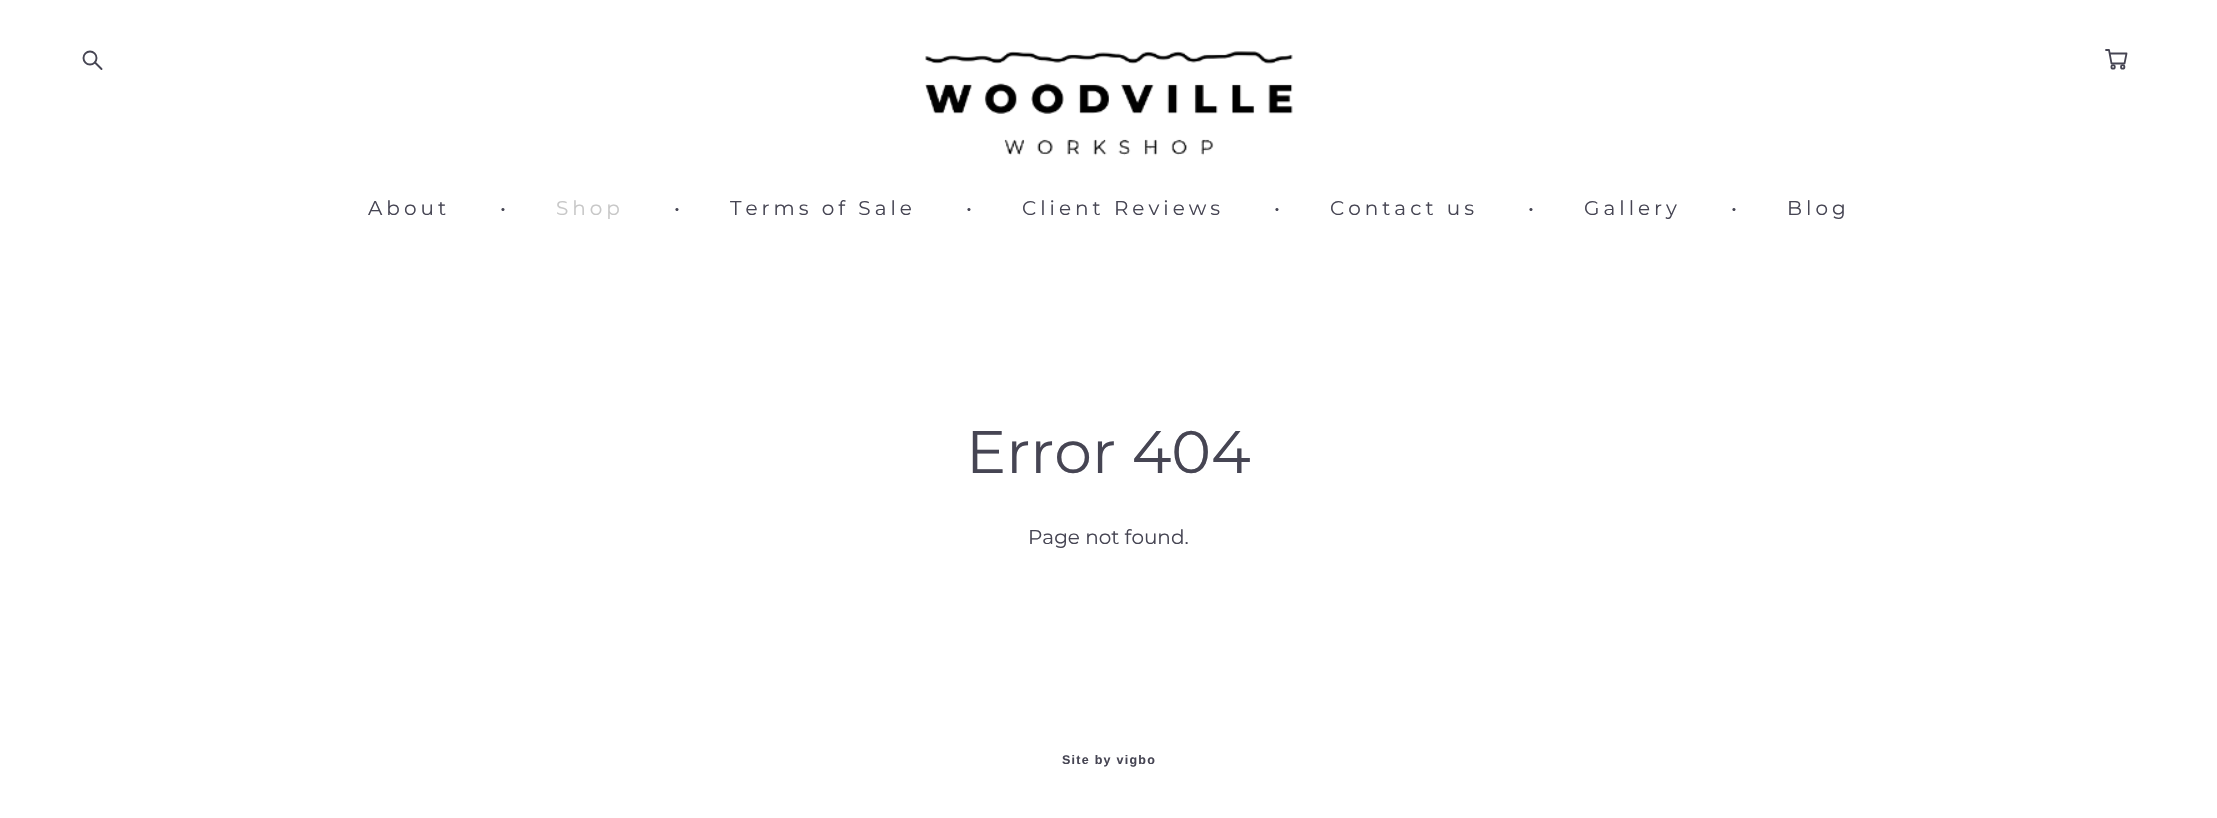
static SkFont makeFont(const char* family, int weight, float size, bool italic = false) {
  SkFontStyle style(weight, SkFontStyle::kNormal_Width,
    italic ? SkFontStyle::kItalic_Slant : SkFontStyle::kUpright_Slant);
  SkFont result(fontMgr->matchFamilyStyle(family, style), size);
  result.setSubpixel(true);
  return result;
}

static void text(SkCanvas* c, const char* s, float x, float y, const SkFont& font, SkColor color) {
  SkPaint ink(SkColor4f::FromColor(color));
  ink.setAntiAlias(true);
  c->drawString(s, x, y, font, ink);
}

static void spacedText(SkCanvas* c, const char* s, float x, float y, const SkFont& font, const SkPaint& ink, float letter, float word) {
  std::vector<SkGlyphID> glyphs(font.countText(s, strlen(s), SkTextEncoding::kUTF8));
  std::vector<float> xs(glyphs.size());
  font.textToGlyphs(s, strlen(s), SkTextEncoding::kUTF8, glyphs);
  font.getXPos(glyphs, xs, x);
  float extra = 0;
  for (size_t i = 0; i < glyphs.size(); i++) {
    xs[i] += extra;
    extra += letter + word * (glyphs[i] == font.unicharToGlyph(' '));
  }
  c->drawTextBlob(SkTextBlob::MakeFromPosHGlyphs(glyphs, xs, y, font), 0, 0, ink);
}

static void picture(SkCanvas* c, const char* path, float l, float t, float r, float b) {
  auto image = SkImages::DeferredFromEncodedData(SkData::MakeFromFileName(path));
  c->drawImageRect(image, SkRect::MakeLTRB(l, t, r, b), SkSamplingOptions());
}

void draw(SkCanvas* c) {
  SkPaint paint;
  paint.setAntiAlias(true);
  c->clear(0xffffffff);
  paint.setStyle(SkPaint::kStroke_Style);
  paint.setStrokeWidth(1.9f);
  paint.setColor(0xff464553);
  c->drawCircle(90, 58, 6.5f, paint);
  paint.setStrokeCap(SkPaint::kRound_Cap);
  paint.setStrokeJoin(SkPaint::kRound_Join);
  c->drawPath(SkPathBuilder().moveTo(95, 62.5f).lineTo(101.5f, 69).detach(), paint);
  picture(c, "img_01.png", 925, 51, 1293, 156);
  paint.setStrokeWidth(1.8f);
  c->drawPath(SkPathBuilder().moveTo(2106, 50).lineTo(2109, 50).lineTo(2111.5f, 63.5f).lineTo(2124.5f, 63.5f).lineTo(2126.5f, 53.5f).lineTo(2110, 53.5f).detach(), paint);
  paint.setStrokeCap(SkPaint::kButt_Cap);
  paint.setStrokeJoin(SkPaint::kMiter_Join);
  c->drawCircle(2113.1f, 66.9f, 1.7f, paint);
  c->drawCircle(2122.7f, 66.9f, 1.7f, paint);
  SkFont face1 = makeFont("Montserrat", 400, 20);
  paint.setStyle(SkPaint::kFill_Style);
  spacedText(c, "About", 368, 215, face1, paint, 4, 0);
  text(c, "•", 500, 215, face1, 0xff464553);
  paint.setColor(0xffc7c7c7);
  spacedText(c, "Shop", 556, 215, face1, paint, 4, 0);
  text(c, "•", 674, 215, face1, 0xff464553);
  paint.setColor(0xff464553);
  spacedText(c, "Terms of Sale", 730, 215, face1, paint, 4, 0);
  text(c, "•", 966, 215, face1, 0xff464553);
  spacedText(c, "Client Reviews", 1022, 215, face1, paint, 4, 0);
  text(c, "•", 1274, 215, face1, 0xff464553);
  spacedText(c, "Contact us", 1330, 215, face1, paint, 4, 0);
  text(c, "•", 1528, 215, face1, 0xff464553);
  spacedText(c, "Gallery", 1584, 215, face1, paint, 4, 0);
  text(c, "•", 1731, 215, face1, 0xff464553);
  spacedText(c, "Blog", 1787, 215, face1, paint, 4, 0);
  SkFont face2 = makeFont("Montserrat", 400, 60);
  text(c, "Error 404", 966, 473, face2, 0xff464553);
  text(c, "Page not found.", 1028, 544, face1, 0xff464553);
  SkFont face3 = makeFont("Liberation Sans", 700, 12.5f);
  spacedText(c, "Site by vigbo", 1062, 764, face3, paint, 1.25f, 0);
}
